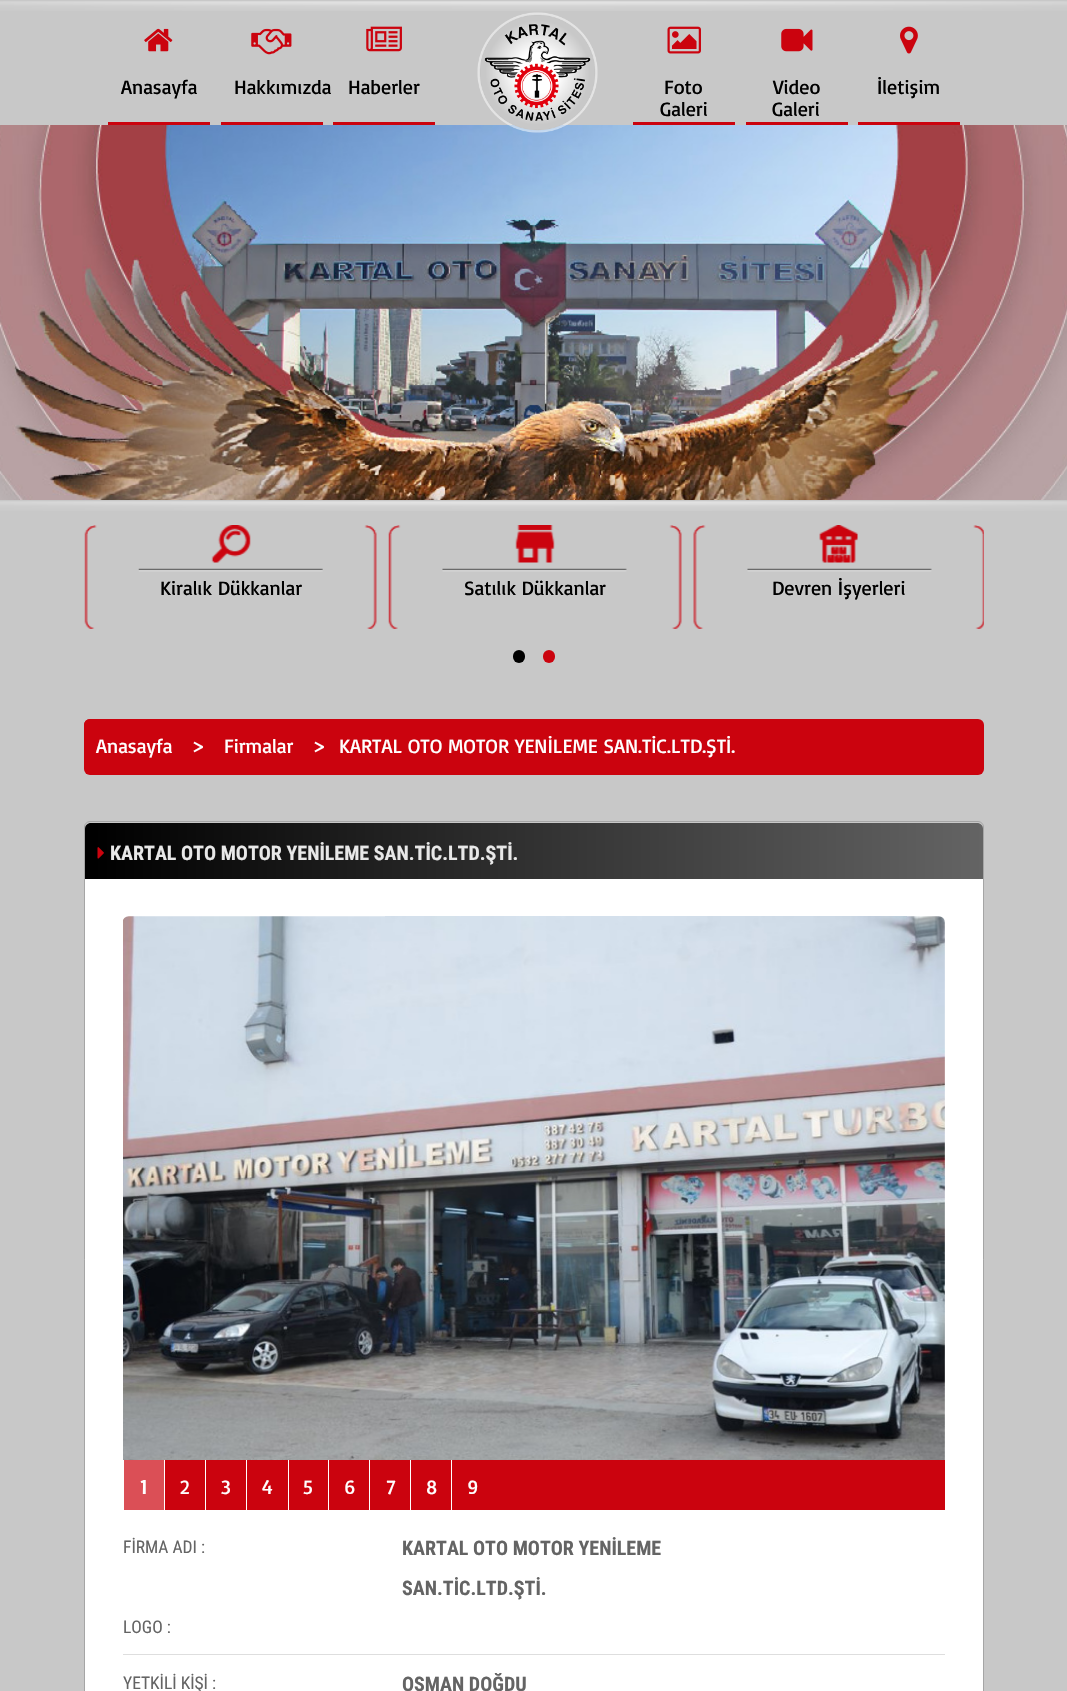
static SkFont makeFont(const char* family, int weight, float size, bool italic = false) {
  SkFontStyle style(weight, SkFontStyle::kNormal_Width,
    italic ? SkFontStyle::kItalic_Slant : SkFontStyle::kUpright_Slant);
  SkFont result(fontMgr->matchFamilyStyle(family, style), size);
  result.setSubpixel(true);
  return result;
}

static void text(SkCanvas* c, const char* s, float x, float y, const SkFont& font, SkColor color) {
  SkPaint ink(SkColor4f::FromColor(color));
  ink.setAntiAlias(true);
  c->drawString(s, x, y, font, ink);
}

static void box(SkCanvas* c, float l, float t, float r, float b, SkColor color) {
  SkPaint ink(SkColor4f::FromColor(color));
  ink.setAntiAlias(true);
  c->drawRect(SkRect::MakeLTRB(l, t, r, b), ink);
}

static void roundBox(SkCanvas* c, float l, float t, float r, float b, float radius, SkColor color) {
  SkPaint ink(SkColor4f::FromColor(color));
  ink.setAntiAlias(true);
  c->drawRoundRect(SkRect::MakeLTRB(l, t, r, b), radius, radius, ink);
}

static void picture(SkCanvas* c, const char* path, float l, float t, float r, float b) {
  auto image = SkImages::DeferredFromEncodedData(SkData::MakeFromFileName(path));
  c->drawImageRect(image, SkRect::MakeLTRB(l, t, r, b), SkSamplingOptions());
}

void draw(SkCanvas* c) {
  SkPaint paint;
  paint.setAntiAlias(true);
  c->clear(0xffc8c8c8);
  picture(c, "img_01.png", 0, 1, 1067, 11);
  box(c, 108, 122, 210, 125, 0xffcb030e);
  picture(c, "img_02.png", 144, 28, 173, 52);
  SkFont face1 = makeFont("Basic", 400, 20);
  text(c, "Anasayfa", 121, 94, face1, 0xff000000);
  box(c, 221, 122, 323, 125, 0xffcb030e);
  picture(c, "img_03.png", 251, 28, 292, 55);
  text(c, "Hakkımızda", 234, 94, face1, 0xff000000);
  box(c, 333, 122, 435, 125, 0xffcb030e);
  picture(c, "img_04.png", 366, 26, 402, 52);
  text(c, "Haberler", 348, 94, face1, 0xff000000);
  picture(c, "img_09.png", 0, 125, 1067, 500);
  picture(c, "img_05.png", 477, 12, 598, 133);
  box(c, 633, 122, 735, 125, 0xffcb030e);
  picture(c, "img_06.png", 667, 26, 701, 54);
  text(c, "Foto", 664, 94, face1, 0xff000000);
  text(c, "Galeri", 660, 116, face1, 0xff000000);
  box(c, 746, 122, 848, 125, 0xffcb030e);
  picture(c, "img_07.png", 781, 28, 813, 52);
  text(c, "Video", 773, 94, face1, 0xff000000);
  text(c, "Galeri", 772, 116, face1, 0xff000000);
  box(c, 858, 122, 960, 125, 0xffcb030e);
  picture(c, "img_08.png", 900, 26, 918, 54);
  text(c, "İletişim", 877, 94, face1, 0xff000000);
  picture(c, "img_01.png", 0, 501, 1067, 511);
  picture(c, "img_10.png", 84, 525, 377, 629);
  picture(c, "img_11.png", 211, 525, 251, 563);
  picture(c, "img_12.png", 138, 568, 323, 572);
  text(c, "Kiralık Dükkanlar", 160, 595, face1, 0xff000000);
  picture(c, "img_13.png", 388, 525, 682, 629);
  picture(c, "img_14.png", 515, 525, 555, 563);
  picture(c, "img_15.png", 442, 568, 627, 572);
  text(c, "Satılık Dükkanlar", 464, 595, face1, 0xff000000);
  picture(c, "img_16.png", 693, 525, 984, 629);
  picture(c, "img_17.png", 819, 525, 858, 563);
  picture(c, "img_15.png", 747, 568, 932, 572);
  text(c, "Devren İşyerleri", 772, 595, face1, 0xff000000);
  roundBox(c, 513, 650, 525, 663, 6, 0xff000000);
  roundBox(c, 543, 650, 555, 663, 6, 0xffcb030e);
  roundBox(c, 84, 719, 984, 775, 6, 0xffcb030e);
  roundBox(c, 84, 719, 185, 771, 6, 0xffcb030e);
  text(c, "Anasayfa", 96, 753, face1, 0xffffffff);
  text(c, ">", 191, 753, face1, 0xffffffff);
  text(c, "Firmalar", 224, 753, face1, 0xffffffff);
  text(c, ">", 312, 753, face1, 0xffffffff);
  text(c, "KARTAL OTO MOTOR YENİLEME SAN.TİC.LTD.ŞTİ.", 339, 753, face1, 0xffffffff);
  paint.setStyle(SkPaint::kStroke_Style);
  paint.setStrokeWidth(1);
  paint.setColor(0xffa5a5a5);
  c->drawRoundRect(SkRect::MakeLTRB(84.5f, 821.5f, 983.5f, 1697.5f), 5.5f, 5.5f, paint);
  paint.setStyle(SkPaint::kFill_Style);
  {
    const SkColor colors[] = {0xff000000, 0xff646464};
    const float stops[] = {0.01f, 1};
    const SkPoint ends[] = {{85, 851}, {983, 851}};
    paint.setShader(SkGradientShader::MakeLinear(ends, colors, stops, 2, SkTileMode::kClamp));
    paint.setAlpha(255);
  }
  c->drawPath(SkPathBuilder().moveTo(91, 823).lineTo(977, 823).cubicTo(980.5f, 823, 983, 825.5f, 983, 829).lineTo(983, 879).lineTo(85, 879).lineTo(85, 829).cubicTo(85, 825.5f, 87.5f, 823, 91, 823).close().detach(), paint);
  picture(c, "img_18.png", 97, 847, 104, 859);
  SkFont face2 = makeFont("Roboto Condensed", 700, 20);
  text(c, "KARTAL OTO MOTOR YENİLEME SAN.TİC.LTD.ŞTİ.", 110, 860, face2, 0xffe8e8e8);
  box(c, 85, 879, 983, 1691, 0xffffffff);
  picture(c, "img_19.png", 123, 916, 945, 1460);
  box(c, 165, 1460, 945, 1510, 0xffcb030e);
  box(c, 124, 1460, 164, 1510, 0xffdb4f56);
  SkFont face3 = makeFont("Basic", 700, 20);
  text(c, "1", 140, 1494, face3, 0xffffffff);
  text(c, "2", 180, 1494, face1, 0xffffffff);
  box(c, 205, 1460, 206, 1510, 0xffffffff);
  text(c, "3", 221, 1494, face1, 0xffffffff);
  box(c, 246, 1460, 247, 1510, 0xffffffff);
  text(c, "4", 262, 1494, face1, 0xffffffff);
  box(c, 288, 1460, 289, 1510, 0xffffffff);
  text(c, "5", 303, 1494, face1, 0xffffffff);
  box(c, 328, 1460, 329, 1510, 0xffffffff);
  text(c, "6", 344, 1494, face1, 0xffffffff);
  box(c, 369, 1460, 370, 1510, 0xffffffff);
  text(c, "7", 386, 1494, face1, 0xffffffff);
  box(c, 410, 1460, 411, 1510, 0xffffffff);
  text(c, "8", 426, 1494, face1, 0xffffffff);
  box(c, 451, 1460, 452, 1510, 0xffffffff);
  text(c, "9", 467, 1494, face1, 0xffffffff);
  SkFont face4 = makeFont("Roboto Condensed", 400, 17.5f);
  text(c, "FİRMA ADI :", 123, 1553, face4, 0xff646464);
  text(c, "KARTAL OTO MOTOR YENİLEME", 402, 1555, face2, 0xff646464);
  text(c, "SAN.TİC.LTD.ŞTİ.", 402, 1595, face2, 0xff646464);
  text(c, "LOGO :", 123, 1633, face4, 0xff646464);
  box(c, 123, 1654, 945, 1655, 0xffdedede);
  text(c, "YETKİLİ KİŞİ :", 123, 1689, face4, 0xff646464);
  text(c, "OSMAN DOĞDU", 402, 1691, face2, 0xff646464);
}
